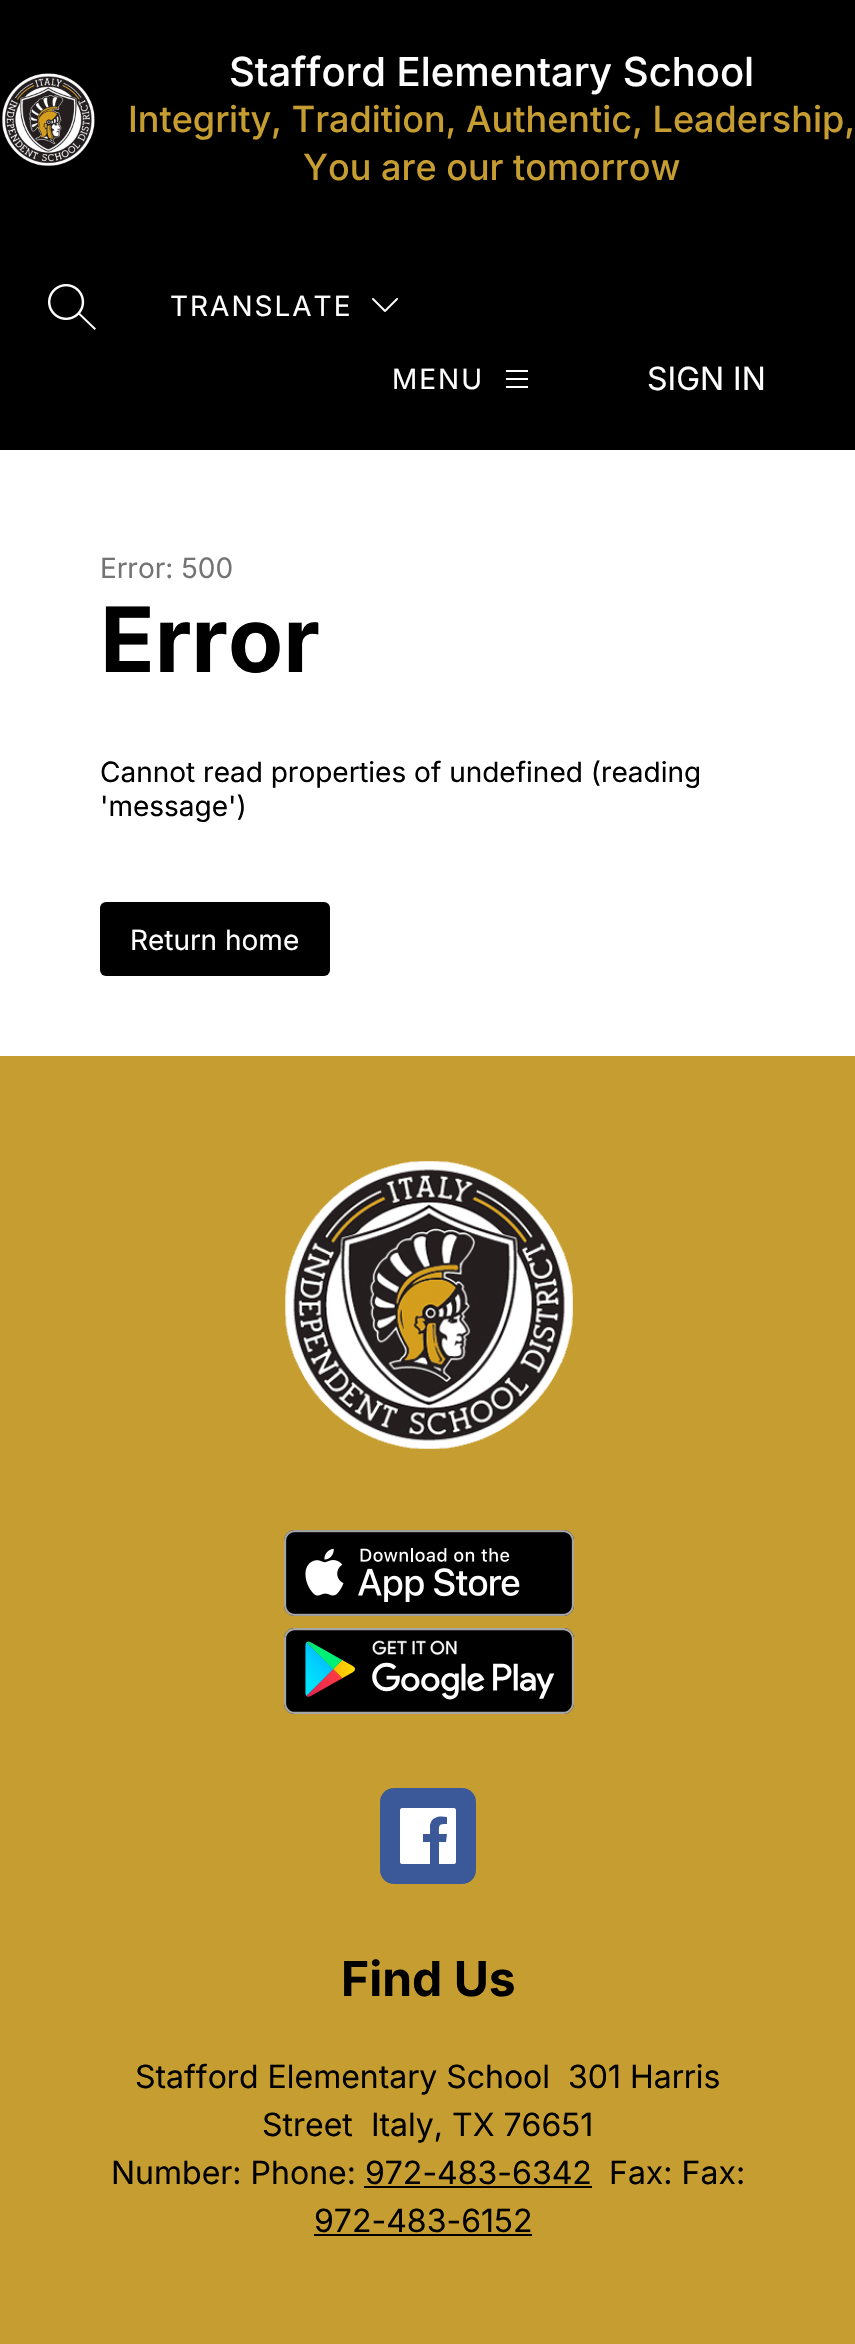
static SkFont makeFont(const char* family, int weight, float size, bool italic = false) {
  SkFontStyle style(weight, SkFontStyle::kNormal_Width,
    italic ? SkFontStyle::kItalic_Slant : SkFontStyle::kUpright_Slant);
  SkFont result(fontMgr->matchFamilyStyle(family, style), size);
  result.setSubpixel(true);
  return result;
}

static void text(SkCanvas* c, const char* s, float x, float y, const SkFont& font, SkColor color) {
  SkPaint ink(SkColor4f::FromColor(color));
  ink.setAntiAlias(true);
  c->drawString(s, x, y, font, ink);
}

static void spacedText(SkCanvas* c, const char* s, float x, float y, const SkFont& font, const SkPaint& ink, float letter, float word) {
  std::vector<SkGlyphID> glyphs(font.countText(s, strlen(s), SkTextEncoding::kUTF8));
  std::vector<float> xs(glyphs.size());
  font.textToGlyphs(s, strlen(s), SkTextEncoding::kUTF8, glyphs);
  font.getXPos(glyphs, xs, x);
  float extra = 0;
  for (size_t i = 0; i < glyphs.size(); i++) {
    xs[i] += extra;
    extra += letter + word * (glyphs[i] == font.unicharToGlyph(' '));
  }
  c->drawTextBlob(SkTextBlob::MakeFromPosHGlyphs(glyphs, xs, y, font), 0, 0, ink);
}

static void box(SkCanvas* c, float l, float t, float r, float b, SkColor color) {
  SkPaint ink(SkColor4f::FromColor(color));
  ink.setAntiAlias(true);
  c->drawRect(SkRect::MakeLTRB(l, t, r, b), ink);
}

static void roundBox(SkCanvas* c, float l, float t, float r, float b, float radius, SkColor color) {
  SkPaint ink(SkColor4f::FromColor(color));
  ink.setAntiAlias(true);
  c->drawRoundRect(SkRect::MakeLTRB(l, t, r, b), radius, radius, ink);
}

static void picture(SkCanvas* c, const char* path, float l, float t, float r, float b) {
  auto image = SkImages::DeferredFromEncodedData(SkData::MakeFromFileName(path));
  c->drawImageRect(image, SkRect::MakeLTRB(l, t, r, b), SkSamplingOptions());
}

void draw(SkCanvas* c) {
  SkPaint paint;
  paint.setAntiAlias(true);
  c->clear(0xffffffff);
  box(c, 0, 0, 855, 450, 0xff000000);
  picture(c, "img_01.png", 2, 73, 95, 166);
  SkFont face1 = makeFont("Inter", 500, 40);
  text(c, "Stafford Elementary School", 229, 86, face1, 0xffffffff);
  SkFont face2 = makeFont("Inter", 500, 36);
  text(c, "Integrity, Tradition, Authentic, Leadership,", 128, 132, face2, 0xffc69d30);
  text(c, "You are our tomorrow", 303, 180, face2, 0xffc69d30);
  picture(c, "img_02.png", 48, 284, 96, 330);
  SkFont face3 = makeFont("Inter", 400, 28);
  paint.setColor(0xffffffff);
  spacedText(c, "TRANSLATE", 170, 316, face3, paint, 2, 0);
  picture(c, "img_03.png", 372, 298, 398, 312);
  spacedText(c, "MENU", 392, 389, face3, paint, 2, 0);
  picture(c, "img_04.png", 506, 370, 528, 388);
  SkFont face4 = makeFont("Inter", 400, 32);
  text(c, "SIGN IN", 647, 390, face4, 0xffffffff);
  text(c, "Error: 500", 100, 578, face3, 0xff747474);
  SkFont face5 = makeFont("Inter", 700, 90);
  text(c, "Error", 100, 672, face5, 0xff000000);
  text(c, "Cannot read properties of undefined (reading", 100, 782, face3, 0xff000000);
  text(c, "'message')", 100, 816, face3, 0xff000000);
  roundBox(c, 100, 902, 330, 976, 6, 0xff000000);
  text(c, "Return home", 130, 950, face3, 0xffffffff);
  box(c, 0, 1056, 855, 2344, 0xffc69d30);
  picture(c, "img_05.png", 285, 1161, 573, 1449);
  picture(c, "img_06.png", 284, 1530, 574, 1616);
  picture(c, "img_07.png", 284, 1628, 574, 1714);
  roundBox(c, 380, 1788, 476, 1884, 14, 0xff3b5998);
  c->drawPath(SkPathBuilder().moveTo(454, 1808).lineTo(402, 1808).cubicTo(401, 1808, 400, 1809, 400, 1810).lineTo(400, 1862).cubicTo(400, 1863, 401, 1864, 402, 1864).lineTo(454, 1864).cubicTo(455, 1864, 456, 1863, 456, 1862).lineTo(456, 1810).cubicTo(456, 1809, 455, 1808, 454, 1808).close().moveTo(447, 1824).cubicTo(438, 1824, 439, 1825, 439, 1834).lineTo(447, 1834).lineTo(446, 1842).lineTo(439, 1842).lineTo(439, 1864).lineTo(430, 1864).lineTo(430, 1842).lineTo(423, 1842).lineTo(423, 1834).lineTo(430, 1834).lineTo(430, 1825).cubicTo(432, 1816, 440, 1816, 447, 1817).close().detach(), paint);
  SkFont face6 = makeFont("Inter", 700, 48);
  text(c, "Find Us", 341, 1996, face6, 0xff000000);
  text(c, "Stafford Elementary School", 135, 2088, face4, 0xff000000);
  text(c, "301 Harris", 568, 2088, face4, 0xff000000);
  text(c, "Street", 262, 2136, face4, 0xff000000);
  text(c, "Italy, TX 76651", 371, 2136, face4, 0xff000000);
  text(c, "Number: Phone: 972-483-6342", 111, 2184, face4, 0xff000000);
  box(c, 364, 2186, 592, 2188, 0xff000000);
  text(c, "Fax: Fax:", 609, 2184, face4, 0xff000000);
  text(c, "972-483-6152", 314, 2232, face4, 0xff000000);
  box(c, 314, 2234, 532, 2236, 0xff000000);
}
